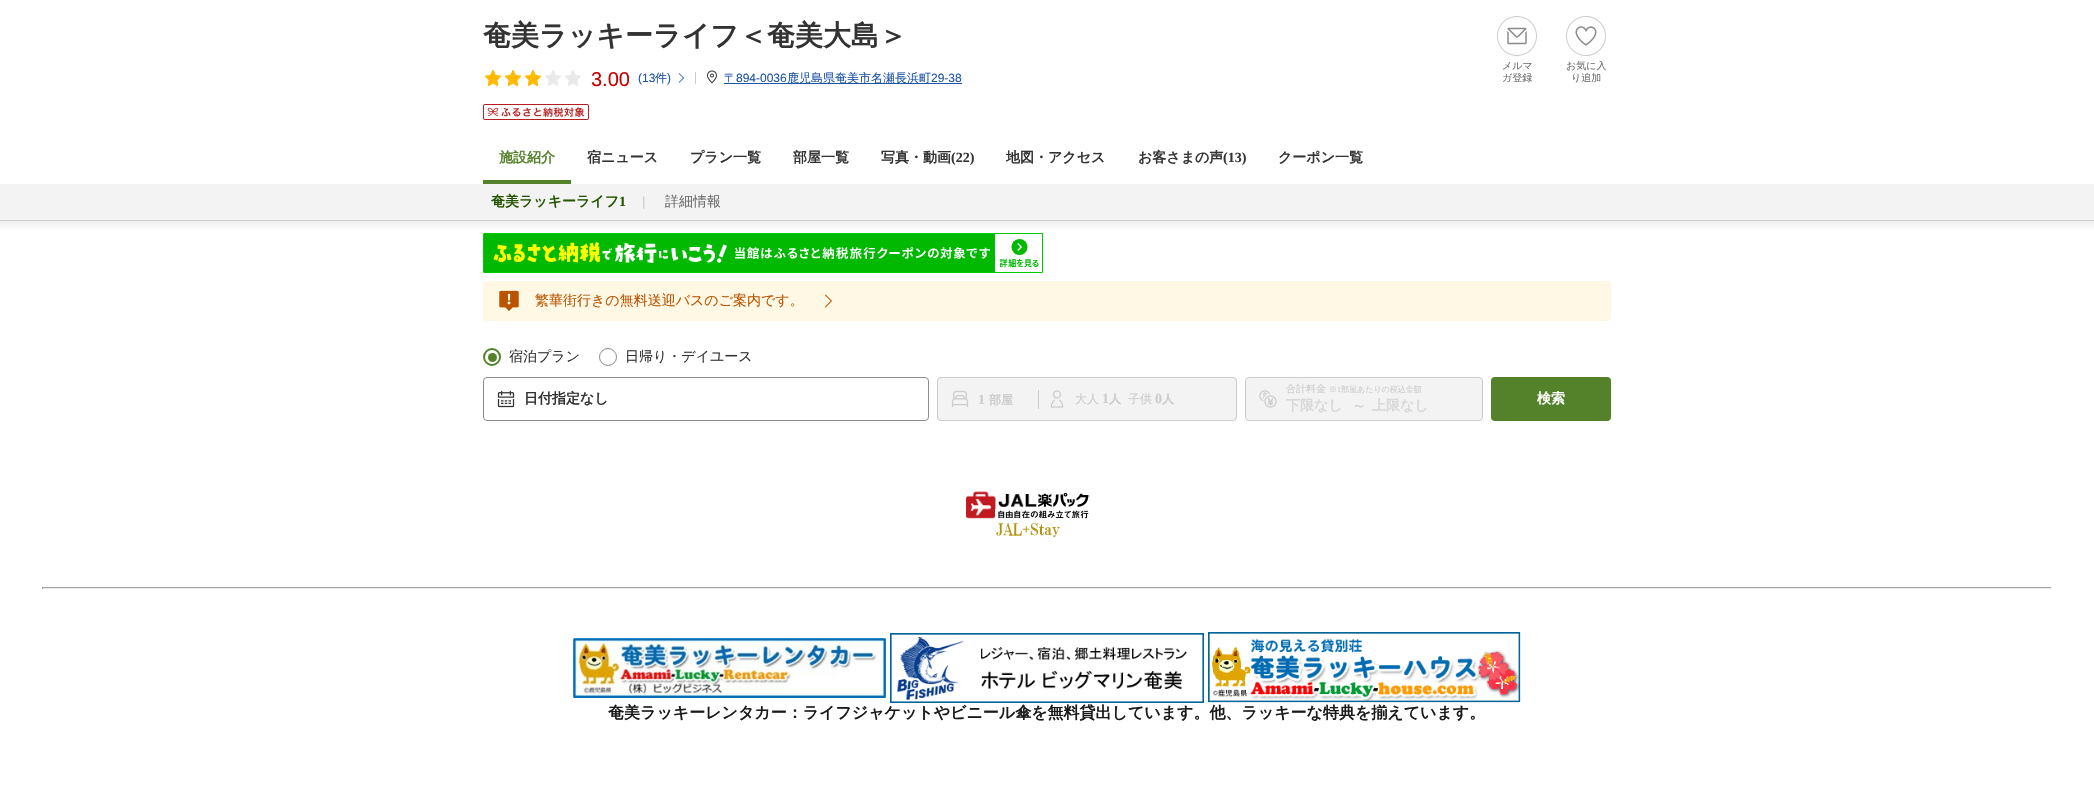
static SkFont makeFont(const char* family, int weight, float size, bool italic = false) {
  SkFontStyle style(weight, SkFontStyle::kNormal_Width,
    italic ? SkFontStyle::kItalic_Slant : SkFontStyle::kUpright_Slant);
  SkFont result(fontMgr->matchFamilyStyle(family, style), size);
  result.setSubpixel(true);
  return result;
}

static void text(SkCanvas* c, const char* s, float x, float y, const SkFont& font, SkColor color) {
  SkPaint ink(SkColor4f::FromColor(color));
  ink.setAntiAlias(true);
  c->drawString(s, x, y, font, ink);
}

static void box(SkCanvas* c, float l, float t, float r, float b, SkColor color) {
  SkPaint ink(SkColor4f::FromColor(color));
  ink.setAntiAlias(true);
  c->drawRect(SkRect::MakeLTRB(l, t, r, b), ink);
}

static void roundBox(SkCanvas* c, float l, float t, float r, float b, float radius, SkColor color) {
  SkPaint ink(SkColor4f::FromColor(color));
  ink.setAntiAlias(true);
  c->drawRoundRect(SkRect::MakeLTRB(l, t, r, b), radius, radius, ink);
}

static void picture(SkCanvas* c, const char* path, float l, float t, float r, float b) {
  auto image = SkImages::DeferredFromEncodedData(SkData::MakeFromFileName(path));
  c->drawImageRect(image, SkRect::MakeLTRB(l, t, r, b), SkSamplingOptions());
}

void draw(SkCanvas* c) {
  SkPaint paint;
  paint.setAntiAlias(true);
  c->clear(0xffffffff);
  SkFont face1 = makeFont("WenQuanYi Zen Hei", 700, 28);
  text(c, "奄美ラッキーライフ＜奄美大島＞", 483, 45, face1, 0xff333333);
  picture(c, "img_01.png", 484, 69, 502, 87);
  picture(c, "img_01.png", 504, 69, 522, 87);
  picture(c, "img_01.png", 524, 69, 542, 87);
  picture(c, "img_02.png", 545, 70, 561, 86);
  picture(c, "img_02.png", 565, 70, 581, 86);
  SkFont face2 = makeFont("Liberation Sans", 400, 20);
  text(c, "3.00", 591, 86, face2, 0xffcc0000);
  box(c, 695, 72, 696, 84, 0xffcccccc);
  SkFont face3 = makeFont("Liberation Sans", 400, 12);
  text(c, "(13", 638, 82, face3, 0xff1d54a7);
  SkFont face4 = makeFont("WenQuanYi Zen Hei", 500, 12);
  text(c, "件", 655, 82, face4, 0xff1d54a7);
  text(c, ")", 667, 82, face3, 0xff1d54a7);
  picture(c, "img_03.png", 678, 73, 684, 83);
  picture(c, "img_04.png", 707, 70, 717, 84);
  text(c, "〒", 724, 82, face4, 0xff1d54a7);
  box(c, 724, 83, 962, 84, 0xff1d54a7);
  text(c, "894-0036", 736, 82, face3, 0xff1d54a7);
  text(c, "鹿児島県奄美市名瀬長浜町", 787, 82, face4, 0xff1d54a7);
  text(c, "29-38", 931, 82, face3, 0xff1d54a7);
  picture(c, "img_05.png", 483, 104, 589, 120);
  picture(c, "img_06.png", 1497, 16, 1537, 56);
  SkFont face5 = makeFont("WenQuanYi Zen Hei", 500, 10);
  text(c, "メルマ", 1502, 69, face5, 0xff6d6d6d);
  text(c, "ガ登録", 1502, 81, face5, 0xff6d6d6d);
  picture(c, "img_07.png", 1566, 16, 1606, 56);
  text(c, "お気に入", 1566, 69, face5, 0xff6d6d6d);
  text(c, "り追加", 1571, 81, face5, 0xff6d6d6d);
  box(c, 483, 180, 571, 184, 0xff54822b);
  SkFont face6 = makeFont("WenQuanYi Zen Hei", 700, 14);
  text(c, "施設紹介", 499, 162, face6, 0xff54822b);
  text(c, "宿ニュース", 587, 162, face6, 0xff333333);
  text(c, "プラン一覧", 690, 162, face6, 0xff333333);
  text(c, "部屋一覧", 793, 162, face6, 0xff333333);
  text(c, "写真・動画", 881, 162, face6, 0xff333333);
  SkFont face7 = makeFont("Liberation Serif", 700, 14);
  text(c, "(22)", 951, 162, face7, 0xff333333);
  text(c, "地図・アクセス", 1006, 162, face6, 0xff333333);
  text(c, "お客さまの声", 1138, 162, face6, 0xff333333);
  text(c, "(13)", 1223, 162, face7, 0xff333333);
  text(c, "クーポン一覧", 1278, 162, face6, 0xff333333);
  {
    const SkColor colors[] = {0xffffffff, 0xffededed};
    const float stops[] = {0, 1};
    const SkPoint ends[] = {{1047, 231}, {1047, 221}};
    paint.setShader(SkGradientShader::MakeLinear(ends, colors, stops, 2, SkTileMode::kClamp));
    paint.setAlpha(255);
  }
  c->drawRect(SkRect::MakeLTRB(0, 221, 2094, 230), paint);
  box(c, 0, 184, 2094, 220, 0xfff3f3f3);
  box(c, 0, 220, 2094, 221, 0xffcccccc);
  text(c, "奄美ラッキーライフ", 491, 206, face6, 0xff255500);
  text(c, "1", 619, 206, face7, 0xff255500);
  SkFont face8 = makeFont("Liberation Sans", 400, 13);
  text(c, "|", 642, 206, face8, 0xffcccccc);
  SkFont face9 = makeFont("WenQuanYi Zen Hei", 500, 14);
  text(c, "詳細情報", 665, 206, face9, 0xff6d6d6d);
  picture(c, "img_08.png", 483, 233, 1043, 273);
  roundBox(c, 483, 281, 1611, 321, 2, 0xfffff8e5);
  picture(c, "img_09.png", 499, 290, 519, 311);
  text(c, "繁華街行きの無料送迎バスのご案内です。", 535, 305, face9, 0xffbb5400);
  picture(c, "img_10.png", 825, 294, 832, 308);
  paint.setStyle(SkPaint::kStroke_Style);
  paint.setStrokeWidth(2);
  paint.setShader(nullptr);
  paint.setColor(0xff54822b);
  c->drawCircle(492, 357, 8, paint);
  text(c, "宿泊プラン", 509, 361, face9, 0xff333333);
  paint.setStyle(SkPaint::kFill_Style);
  c->drawCircle(492.5f, 357.5f, 4.5f, paint);
  paint.setStyle(SkPaint::kStroke_Style);
  paint.setStrokeWidth(1);
  paint.setColor(0xff8c8c8c);
  c->drawCircle(608, 357, 8.5f, paint);
  text(c, "日帰り・デイユース", 625, 361, face9, 0xff333333);
  c->drawRoundRect(SkRect::MakeLTRB(483.5f, 377.5f, 928.5f, 420.5f), 3.5f, 3.5f, paint);
  picture(c, "img_11.png", 497, 390, 515, 408);
  text(c, "日付指定なし", 524, 403, face6, 0xff333333);
  paint.setStyle(SkPaint::kFill_Style);
  paint.setColor(0xfff3f3f3);
  c->drawRoundRect(SkRect::MakeLTRB(937.5f, 377.5f, 1236.5f, 420.5f), 3.5f, 3.5f, paint);
  paint.setStyle(SkPaint::kStroke_Style);
  paint.setColor(0xffcccccc);
  c->drawRoundRect(SkRect::MakeLTRB(937.5f, 377.5f, 1236.5f, 420.5f), 3.5f, 3.5f, paint);
  box(c, 1038, 390, 1039, 409, 0xffcccccc);
  picture(c, "img_12.png", 951, 390, 969, 408);
  text(c, "1", 978, 404, face7, 0xffcccccc);
  SkFont face10 = makeFont("WenQuanYi Zen Hei", 700, 12);
  text(c, "部屋", 989, 404, face10, 0xffcccccc);
  picture(c, "img_13.png", 1050, 390, 1064, 408);
  text(c, "大人", 1075, 403, face4, 0xffcccccc);
  text(c, "1", 1102, 403, face7, 0xffcccccc);
  text(c, "人", 1109, 403, face10, 0xffcccccc);
  text(c, "子供", 1128, 403, face4, 0xffcccccc);
  text(c, "0", 1155, 403, face7, 0xffcccccc);
  text(c, "人", 1162, 403, face10, 0xffcccccc);
  paint.setStyle(SkPaint::kFill_Style);
  paint.setColor(0xfff3f3f3);
  c->drawRoundRect(SkRect::MakeLTRB(1245.5f, 377.5f, 1482.5f, 420.5f), 3.5f, 3.5f, paint);
  paint.setStyle(SkPaint::kStroke_Style);
  paint.setColor(0xffcccccc);
  c->drawRoundRect(SkRect::MakeLTRB(1245.5f, 377.5f, 1482.5f, 420.5f), 3.5f, 3.5f, paint);
  picture(c, "img_14.png", 1259, 390, 1277, 408);
  text(c, "合計料金", 1286, 392, face5, 0xffcccccc);
  SkFont face11 = makeFont("WenQuanYi Zen Hei", 500, 8);
  text(c, "※", 1329, 392, face11, 0xffcccccc);
  SkFont face12 = makeFont("Liberation Serif", 400, 8);
  text(c, "1", 1337, 392, face12, 0xffcccccc);
  text(c, "部屋あたりの税込金額", 1341, 392, face11, 0xffcccccc);
  text(c, "下限なし", 1286, 410, face6, 0xffd8d8d8);
  text(c, "〜", 1354, 410, face5, 0xffcccccc);
  text(c, "上限なし", 1372, 410, face6, 0xffd8d8d8);
  roundBox(c, 1491, 377, 1611, 421, 4, 0xff54822b);
  text(c, "検索", 1537, 403, face6, 0xffffffff);
  picture(c, "img_15.png", 966, 491, 1090, 537);
  box(c, 42, 587, 2052, 588, 0xff9f9f9f);
  box(c, 2051, 587, 2052, 589, 0xffeeeeee);
  box(c, 42, 588, 2052, 589, 0xffeeeeee);
  box(c, 42, 587, 43, 589, 0xff9f9f9f);
  picture(c, "img_16.png", 573, 638, 886, 698);
  picture(c, "img_17.png", 890, 633, 1204, 703);
  picture(c, "img_18.png", 1208, 632, 1521, 703);
  SkFont face13 = makeFont("WenQuanYi Zen Hei", 700, 16);
  text(c, "奄美ラッキーレンタカー：ライフジャケットやビニール傘を無料貸出しています。他、ラッキーな特典を揃えています。", 608, 718, face13, 0xff1a1a1a);
}
